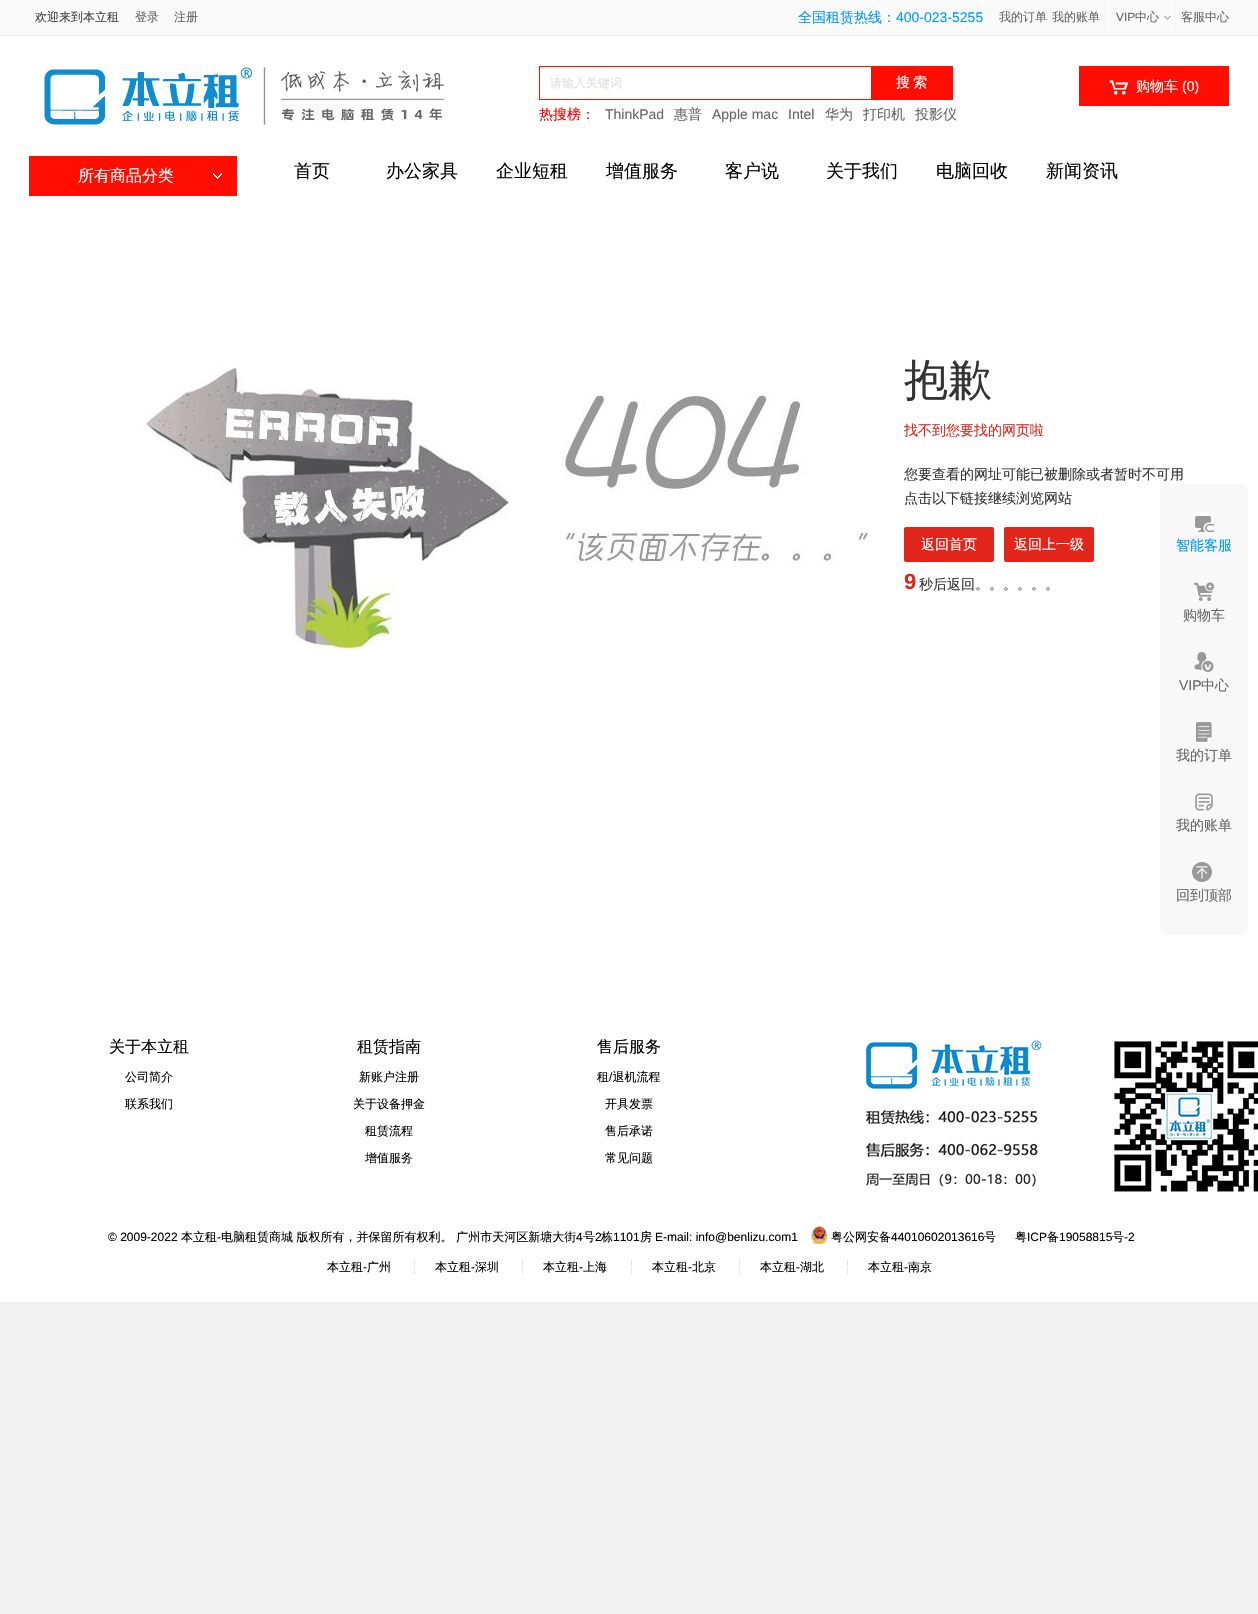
static SkFont makeFont(const char* family, int weight, float size, bool italic = false) {
  SkFontStyle style(weight, SkFontStyle::kNormal_Width,
    italic ? SkFontStyle::kItalic_Slant : SkFontStyle::kUpright_Slant);
  SkFont result(fontMgr->matchFamilyStyle(family, style), size);
  result.setSubpixel(true);
  return result;
}

static void text(SkCanvas* c, const char* s, float x, float y, const SkFont& font, SkColor color) {
  SkPaint ink(SkColor4f::FromColor(color));
  ink.setAntiAlias(true);
  c->drawString(s, x, y, font, ink);
}

static void spacedText(SkCanvas* c, const char* s, float x, float y, const SkFont& font, const SkPaint& ink, float letter, float word) {
  std::vector<SkGlyphID> glyphs(font.countText(s, strlen(s), SkTextEncoding::kUTF8));
  std::vector<float> xs(glyphs.size());
  font.textToGlyphs(s, strlen(s), SkTextEncoding::kUTF8, glyphs);
  font.getXPos(glyphs, xs, x);
  float extra = 0;
  for (size_t i = 0; i < glyphs.size(); i++) {
    xs[i] += extra;
    extra += letter + word * (glyphs[i] == font.unicharToGlyph(' '));
  }
  c->drawTextBlob(SkTextBlob::MakeFromPosHGlyphs(glyphs, xs, y, font), 0, 0, ink);
}

static void box(SkCanvas* c, float l, float t, float r, float b, SkColor color) {
  SkPaint ink(SkColor4f::FromColor(color));
  ink.setAntiAlias(true);
  c->drawRect(SkRect::MakeLTRB(l, t, r, b), ink);
}

static void roundBox(SkCanvas* c, float l, float t, float r, float b, float radius, SkColor color) {
  SkPaint ink(SkColor4f::FromColor(color));
  ink.setAntiAlias(true);
  c->drawRoundRect(SkRect::MakeLTRB(l, t, r, b), radius, radius, ink);
}

static void picture(SkCanvas* c, const char* path, float l, float t, float r, float b) {
  auto image = SkImages::DeferredFromEncodedData(SkData::MakeFromFileName(path));
  c->drawImageRect(image, SkRect::MakeLTRB(l, t, r, b), SkSamplingOptions());
}

void draw(SkCanvas* c) {
  SkPaint paint;
  paint.setAntiAlias(true);
  c->clear(0xfff2f2f2);
  box(c, 0, 36, 1258, 1302, 0xffffffff);
  box(c, 0, 0, 1258, 35, 0xfffafafa);
  SkFont face1 = makeFont("WenQuanYi Zen Hei", 500, 12);
  text(c, "欢迎来到本立租", 35, 21, face1, 0xff424242);
  text(c, "登录", 135, 21, face1, 0xff666666);
  text(c, "注册", 174, 21, face1, 0xff666666);
  SkFont face2 = makeFont("WenQuanYi Zen Hei", 500, 14);
  text(c, "全国租赁热线：", 798, 22, face2, 0xff0099ff);
  SkFont face3 = makeFont("Liberation Sans", 400, 14);
  text(c, "400-023-5255", 896, 22, face3, 0xff0099ff);
  text(c, "我的订单", 999, 21, face1, 0xff666666);
  text(c, "我的账单", 1052, 21, face1, 0xff666666);
  box(c, 1175, 0, 1176, 35, 0xfff5f5f5);
  box(c, 1105, 0, 1106, 35, 0xfff5f5f5);
  SkFont face4 = makeFont("Liberation Sans", 400, 12);
  text(c, "VIP", 1116, 21, face4, 0xff666666);
  text(c, "中心", 1135, 21, face1, 0xff666666);
  picture(c, "img_01.png", 1164, 16, 1171, 20);
  text(c, "客服中心", 1181, 21, face1, 0xff666666);
  picture(c, "img_02.png", 44, 67, 444, 126);
  paint.setStyle(SkPaint::kStroke_Style);
  paint.setStrokeWidth(1);
  paint.setColor(0xffff0d00);
  c->drawRect(SkRect::MakeLTRB(539.5f, 66.5f, 872.5f, 99.5f), paint);
  text(c, "请输入关键词", 550, 87, face1, 0xffdfdfdd);
  box(c, 871, 66, 953, 100, 0xffff0d00);
  paint.setStyle(SkPaint::kFill_Style);
  paint.setColor(0xffffffff);
  spacedText(c, "搜 索", 896, 87, face2, paint, 0, -1);
  text(c, "热搜榜：", 539, 119, face2, 0xffff0000);
  text(c, "ThinkPad", 605, 119, face3, 0xff666666);
  text(c, "惠普", 674, 119, face2, 0xff666666);
  text(c, "Apple mac", 712, 119, face3, 0xff666666);
  text(c, "Intel", 788, 119, face3, 0xff666666);
  text(c, "华为", 825, 119, face2, 0xff666666);
  text(c, "打印机", 863, 119, face2, 0xff666666);
  text(c, "投影仪", 915, 119, face2, 0xff666666);
  box(c, 1079, 66, 1229, 106, 0xffff0d00);
  picture(c, "img_03.png", 1109, 80, 1129, 95);
  text(c, "购物车", 1136, 91, face2, 0xffffffff);
  text(c, "(0)", 1182, 91, face3, 0xffffffff);
  box(c, 29, 156, 237, 196, 0xffff0d00);
  SkFont face5 = makeFont("WenQuanYi Zen Hei", 500, 16);
  text(c, "所有商品分类", 78, 181, face5, 0xffffffff);
  picture(c, "img_04.png", 213, 173, 222, 179);
  SkFont face6 = makeFont("WenQuanYi Zen Hei", 500, 18);
  text(c, "首页", 294, 177, face6, 0xff000000);
  text(c, "办公家具", 386, 177, face6, 0xff000000);
  text(c, "企业短租", 496, 177, face6, 0xff000000);
  text(c, "增值服务", 606, 177, face6, 0xff000000);
  text(c, "客户说", 725, 177, face6, 0xff000000);
  text(c, "关于我们", 826, 177, face6, 0xff000000);
  text(c, "电脑回收", 936, 177, face6, 0xff000000);
  text(c, "新闻资讯", 1046, 177, face6, 0xff000000);
  picture(c, "img_05.png", 141, 364, 869, 657);
  SkFont face7 = makeFont("WenQuanYi Zen Hei", 500, 44);
  text(c, "抱歉", 904, 395, face7, 0xff333333);
  text(c, "找不到您要找的网页啦", 904, 435, face2, 0xffe1251b);
  text(c, "您要查看的网址可能已被删除或者暂时不可用", 904, 479, face2, 0xff333333);
  text(c, "点击以下链接继续浏览网站", 904, 503, face2, 0xff333333);
  roundBox(c, 904, 527, 994, 562, 2, 0xffe1251b);
  text(c, "返回首页", 921, 549, face2, 0xffffffff);
  roundBox(c, 1004, 527, 1094, 562, 2, 0xffe1251b);
  text(c, "返回上一级", 1014, 549, face2, 0xffffffff);
  SkFont face8 = makeFont("Liberation Sans", 700, 22);
  text(c, "9", 904, 589, face8, 0xffe1251b);
  text(c, "秒后返回。。。。。。", 919, 589, face2, 0xff333333);
  roundBox(c, 1160, 484, 1248, 935, 8, 0xfff8f8f8);
  picture(c, "img_06.png", 1194, 512, 1214, 532);
  text(c, "智能客服", 1176, 550, face2, 0xff0099ff);
  picture(c, "img_07.png", 1194, 582, 1214, 601);
  text(c, "购物车", 1183, 620, face2, 0xff666666);
  picture(c, "img_08.png", 1194, 652, 1214, 672);
  text(c, "VIP", 1179, 690, face3, 0xff666666);
  text(c, "中心", 1201, 690, face2, 0xff666666);
  picture(c, "img_09.png", 1196, 722, 1212, 742);
  text(c, "我的订单", 1176, 760, face2, 0xff666666);
  picture(c, "img_10.png", 1195, 793, 1213, 811);
  text(c, "我的账单", 1176, 830, face2, 0xff666666);
  picture(c, "img_11.png", 1192, 862, 1212, 882);
  text(c, "回到顶部", 1176, 900, face2, 0xff666666);
  text(c, "关于本立租", 109, 1052, face5, 0xff000000);
  text(c, "公司简介", 125, 1081, face1, 0xff000000);
  text(c, "联系我们", 125, 1108, face1, 0xff000000);
  text(c, "租赁指南", 357, 1052, face5, 0xff000000);
  text(c, "新账户注册", 359, 1081, face1, 0xff000000);
  text(c, "关于设备押金", 353, 1108, face1, 0xff000000);
  text(c, "租赁流程", 365, 1135, face1, 0xff000000);
  text(c, "增值服务", 365, 1162, face1, 0xff000000);
  text(c, "售后服务", 597, 1052, face5, 0xff000000);
  text(c, "租 退机流程", 597, 1081, face1, 0xff000000);
  text(c, "/", 609, 1081, face4, 0xff000000);
  text(c, "开具发票", 605, 1108, face1, 0xff000000);
  text(c, "售后承诺", 605, 1135, face1, 0xff000000);
  text(c, "常见问题", 605, 1162, face1, 0xff000000);
  picture(c, "img_12.png", 865, 1040, 1258, 1192);
  text(c, "© 2009-2022", 108, 1241, face4, 0xff000000);
  text(c, "本立租", 181, 1241, face1, 0xff000000);
  text(c, "-", 217, 1241, face4, 0xff000000);
  text(c, "电脑租赁商城 版权所有，并保留所有权利。 广州市天河区新塘大街", 221, 1241, face1, 0xff000000);
  text(c, "4", 576, 1241, face4, 0xff000000);
  text(c, "号", 583, 1241, face1, 0xff000000);
  text(c, "2", 595, 1241, face4, 0xff000000);
  text(c, "栋", 601, 1241, face1, 0xff000000);
  text(c, "1101", 613, 1241, face4, 0xff000000);
  text(c, "房", 640, 1241, face1, 0xff000000);
  text(c, "E-mail: info@benlizu.com1", 655, 1241, face4, 0xff000000);
  picture(c, "img_13.png", 811, 1226, 827, 1244);
  text(c, "粤公网安备", 831, 1241, face1, 0xff000000);
  text(c, "44010602013616", 891, 1241, face4, 0xff000000);
  text(c, "号", 984, 1241, face1, 0xff000000);
  text(c, "粤", 1015, 1241, face1, 0xff000000);
  text(c, "ICP", 1027, 1241, face4, 0xff000000);
  text(c, "备", 1047, 1241, face1, 0xff000000);
  text(c, "19058815", 1059, 1241, face4, 0xff000000);
  text(c, "号", 1112, 1241, face1, 0xff000000);
  text(c, "-2", 1124, 1241, face4, 0xff000000);
  text(c, "本立租", 327, 1271, face1, 0xff000000);
  text(c, "-", 363, 1271, face4, 0xff000000);
  text(c, "广州", 367, 1271, face1, 0xff000000);
  picture(c, "img_14.png", 414, 1260, 415, 1274);
  text(c, "本立租", 435, 1271, face1, 0xff000000);
  text(c, "-", 471, 1271, face4, 0xff000000);
  text(c, "深圳", 475, 1271, face1, 0xff000000);
  picture(c, "img_14.png", 522, 1260, 523, 1274);
  text(c, "本立租", 543, 1271, face1, 0xff000000);
  text(c, "-", 579, 1271, face4, 0xff000000);
  text(c, "上海", 583, 1271, face1, 0xff000000);
  picture(c, "img_14.png", 631, 1260, 632, 1274);
  text(c, "本立租", 652, 1271, face1, 0xff000000);
  text(c, "-", 688, 1271, face4, 0xff000000);
  text(c, "北京", 692, 1271, face1, 0xff000000);
  picture(c, "img_14.png", 739, 1260, 740, 1274);
  text(c, "本立租", 760, 1271, face1, 0xff000000);
  text(c, "-", 796, 1271, face4, 0xff000000);
  text(c, "湖北", 800, 1271, face1, 0xff000000);
  picture(c, "img_14.png", 847, 1260, 848, 1274);
  text(c, "本立租", 868, 1271, face1, 0xff000000);
  text(c, "-", 904, 1271, face4, 0xff000000);
  text(c, "南京", 908, 1271, face1, 0xff000000);
}
